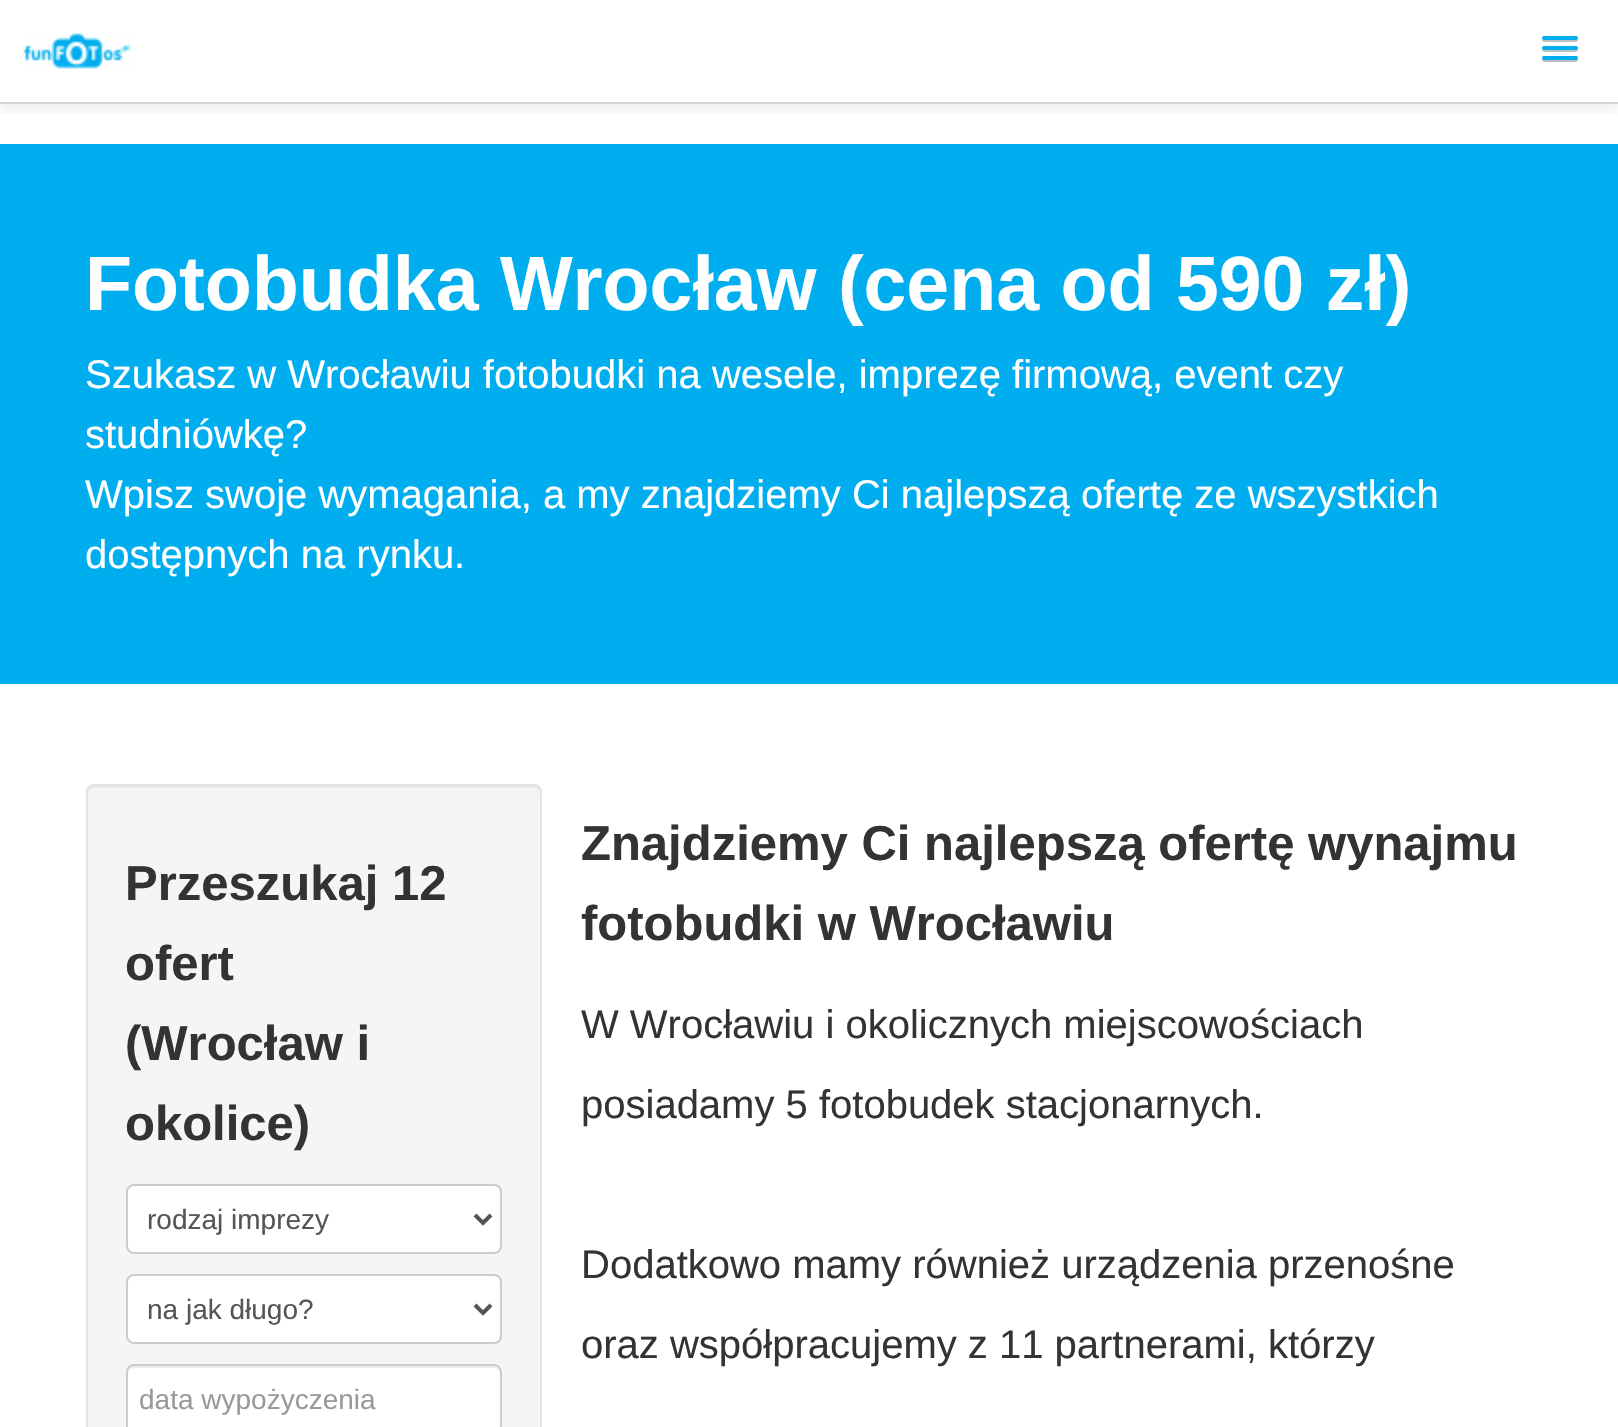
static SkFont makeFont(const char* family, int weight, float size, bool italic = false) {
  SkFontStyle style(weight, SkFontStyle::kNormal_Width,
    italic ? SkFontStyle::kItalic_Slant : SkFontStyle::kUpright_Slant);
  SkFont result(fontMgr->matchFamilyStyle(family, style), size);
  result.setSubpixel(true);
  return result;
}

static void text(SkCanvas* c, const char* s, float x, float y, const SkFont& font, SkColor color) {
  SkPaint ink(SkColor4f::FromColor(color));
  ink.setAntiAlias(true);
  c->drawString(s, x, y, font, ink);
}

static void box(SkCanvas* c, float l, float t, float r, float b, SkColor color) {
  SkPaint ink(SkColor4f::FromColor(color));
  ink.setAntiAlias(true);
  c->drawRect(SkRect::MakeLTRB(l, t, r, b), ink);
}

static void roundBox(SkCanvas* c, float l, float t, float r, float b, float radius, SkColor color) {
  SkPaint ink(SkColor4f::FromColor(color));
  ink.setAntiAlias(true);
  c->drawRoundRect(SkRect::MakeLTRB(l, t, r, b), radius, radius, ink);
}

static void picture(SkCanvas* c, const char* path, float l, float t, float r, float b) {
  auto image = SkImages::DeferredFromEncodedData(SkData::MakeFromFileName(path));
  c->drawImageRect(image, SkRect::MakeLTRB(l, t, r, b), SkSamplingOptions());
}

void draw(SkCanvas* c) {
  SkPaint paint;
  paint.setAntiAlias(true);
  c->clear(0xffffffff);
  c->save();
  c->clipRect(SkRect::MakeLTRB(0, 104, 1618, 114));
  paint.setColor(0x1a000000);
  paint.setMaskFilter(SkMaskFilter::MakeBlur(kNormal_SkBlurStyle, 10));
  c->drawRect(SkRect::MakeLTRB(0, 2, 1618, 106), paint);
  paint.setMaskFilter(nullptr);
  c->restore();
  box(c, 0, 102, 1618, 104, 0xffd4d4d4);
  picture(c, "img_01.png", 23, 33, 131, 69);
  paint.setColor(0xffbfbfbf);
  c->drawPath(SkPathBuilder().moveTo(1542.5f, 39).cubicTo(1540, 43, 1549, 42, 1549.5f, 42).lineTo(1570.5f, 42).cubicTo(1571, 42, 1580, 43, 1577.5f, 39).cubicTo(1577.5f, 39.5f, 1576.5f, 40, 1576, 40).lineTo(1544, 40).cubicTo(1543.5f, 40, 1542.5f, 39.5f, 1542.5f, 39).close().detach(), paint);
  roundBox(c, 1542, 36, 1578, 40, 2, 0xff00aeef);
  c->drawPath(SkPathBuilder().moveTo(1542.5f, 49).cubicTo(1540, 53, 1549, 52, 1549.5f, 52).lineTo(1570.5f, 52).cubicTo(1571, 52, 1580, 53, 1577.5f, 49).cubicTo(1577.5f, 49.5f, 1576.5f, 50, 1576, 50).lineTo(1544, 50).cubicTo(1543.5f, 50, 1542.5f, 49.5f, 1542.5f, 49).close().detach(), paint);
  roundBox(c, 1542, 46, 1578, 50, 2, 0xff00aeef);
  c->drawPath(SkPathBuilder().moveTo(1542.5f, 59).cubicTo(1540, 63, 1549, 62, 1549.5f, 62).lineTo(1570.5f, 62).cubicTo(1571, 62, 1580, 63, 1577.5f, 59).cubicTo(1577.5f, 59.5f, 1576.5f, 60, 1576, 60).lineTo(1544, 60).cubicTo(1543.5f, 60, 1542.5f, 59.5f, 1542.5f, 59).close().detach(), paint);
  roundBox(c, 1542, 56, 1578, 60, 2, 0xff00aeef);
  box(c, 0, 144, 1618, 684, 0xff00aeef);
  SkFont face1 = makeFont("Liberation Sans", 700, 77);
  text(c, "Fotobudka Wrocław (cena od 590 zł)", 85, 310, face1, 0xffffffff);
  SkFont face2 = makeFont("Liberation Sans", 400, 40);
  text(c, "Szukasz w Wrocławiu fotobudki na wesele, imprezę firmową, event czy", 85, 388, face2, 0xffffffff);
  text(c, "studniówkę?", 85, 448, face2, 0xffffffff);
  text(c, "Wpisz swoje wymagania, a my znajdziemy Ci najlepszą ofertę ze wszystkich", 85, 508, face2, 0xffffffff);
  text(c, "dostępnych na rynku.", 85, 568, face2, 0xffffffff);
  roundBox(c, 86, 784, 542, 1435, 8, 0xfff5f5f5);
  paint.setColor(0xffe9e9e9);
  c->drawPath(SkPathBuilder().moveTo(94, 788).lineTo(534, 788).cubicTo(537, 788, 540, 791, 540, 794).lineTo(540, 792).cubicTo(540, 789, 537, 786, 534, 786).lineTo(94, 786).cubicTo(91, 786, 88, 789, 88, 792).lineTo(88, 794).cubicTo(88, 791, 91, 788, 94, 788).close().detach(), paint);
  paint.setStyle(SkPaint::kStroke_Style);
  paint.setStrokeWidth(2);
  paint.setColor(0xffe3e3e3);
  c->drawRoundRect(SkRect::MakeLTRB(87, 785, 541, 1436), 7, 7, paint);
  SkFont face3 = makeFont("Liberation Sans", 700, 49);
  text(c, "Przeszukaj 12", 125, 900, face3, 0xff333333);
  text(c, "ofert", 125, 980, face3, 0xff333333);
  text(c, "(Wrocław i", 125, 1060, face3, 0xff333333);
  text(c, "okolice)", 125, 1140, face3, 0xff333333);
  paint.setStyle(SkPaint::kFill_Style);
  paint.setColor(0xffffffff);
  c->drawRoundRect(SkRect::MakeLTRB(127, 1185, 501, 1253), 7, 7, paint);
  paint.setStyle(SkPaint::kStroke_Style);
  paint.setColor(0xffcccccc);
  c->drawRoundRect(SkRect::MakeLTRB(127, 1185, 501, 1253), 7, 7, paint);
  paint.setStrokeWidth(4);
  paint.setColor(0xff555555);
  c->drawPath(SkPathBuilder().moveTo(475, 1215).lineTo(483, 1223).lineTo(491, 1215).detach(), paint);
  SkFont face4 = makeFont("Liberation Sans", 400, 28);
  text(c, "rodzaj imprezy", 147, 1229, face4, 0xff555555);
  paint.setStyle(SkPaint::kFill_Style);
  paint.setColor(0xffffffff);
  c->drawRoundRect(SkRect::MakeLTRB(127, 1275, 501, 1343), 7, 7, paint);
  paint.setStyle(SkPaint::kStroke_Style);
  paint.setStrokeWidth(2);
  paint.setColor(0xffcccccc);
  c->drawRoundRect(SkRect::MakeLTRB(127, 1275, 501, 1343), 7, 7, paint);
  paint.setStrokeWidth(4);
  paint.setColor(0xff555555);
  c->drawPath(SkPathBuilder().moveTo(475, 1305).lineTo(483, 1313).lineTo(491, 1305).detach(), paint);
  text(c, "na jak długo?", 147, 1319, face4, 0xff555555);
  roundBox(c, 126, 1364, 502, 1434, 8, 0xffffffff);
  paint.setStyle(SkPaint::kFill_Style);
  paint.setColor(0xffececec);
  c->drawPath(SkPathBuilder().moveTo(134, 1368).lineTo(494, 1368).cubicTo(497, 1368, 500, 1371, 500, 1374).lineTo(500, 1372).cubicTo(500, 1369, 497, 1366, 494, 1366).lineTo(134, 1366).cubicTo(131, 1366, 128, 1369, 128, 1372).lineTo(128, 1374).cubicTo(128, 1371, 131, 1368, 134, 1368).close().detach(), paint);
  paint.setStyle(SkPaint::kStroke_Style);
  paint.setStrokeWidth(2);
  paint.setColor(0xffcccccc);
  c->drawRoundRect(SkRect::MakeLTRB(127, 1365, 501, 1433), 7, 7, paint);
  text(c, "data wypożyczenia", 139, 1409, face4, 0xff999999);
  text(c, "Znajdziemy Ci najlepszą ofertę wynajmu", 581, 860, face3, 0xff333333);
  text(c, "fotobudki w Wrocławiu", 581, 940, face3, 0xff333333);
  text(c, "W Wrocławiu i okolicznych miejscowościach", 581, 1038, face2, 0xff333333);
  text(c, "posiadamy 5 fotobudek stacjonarnych.", 581, 1118, face2, 0xff333333);
  text(c, "Dodatkowo mamy również urządzenia przenośne", 581, 1278, face2, 0xff333333);
  text(c, "oraz współpracujemy z 11 partnerami, którzy", 581, 1358, face2, 0xff333333);
}
